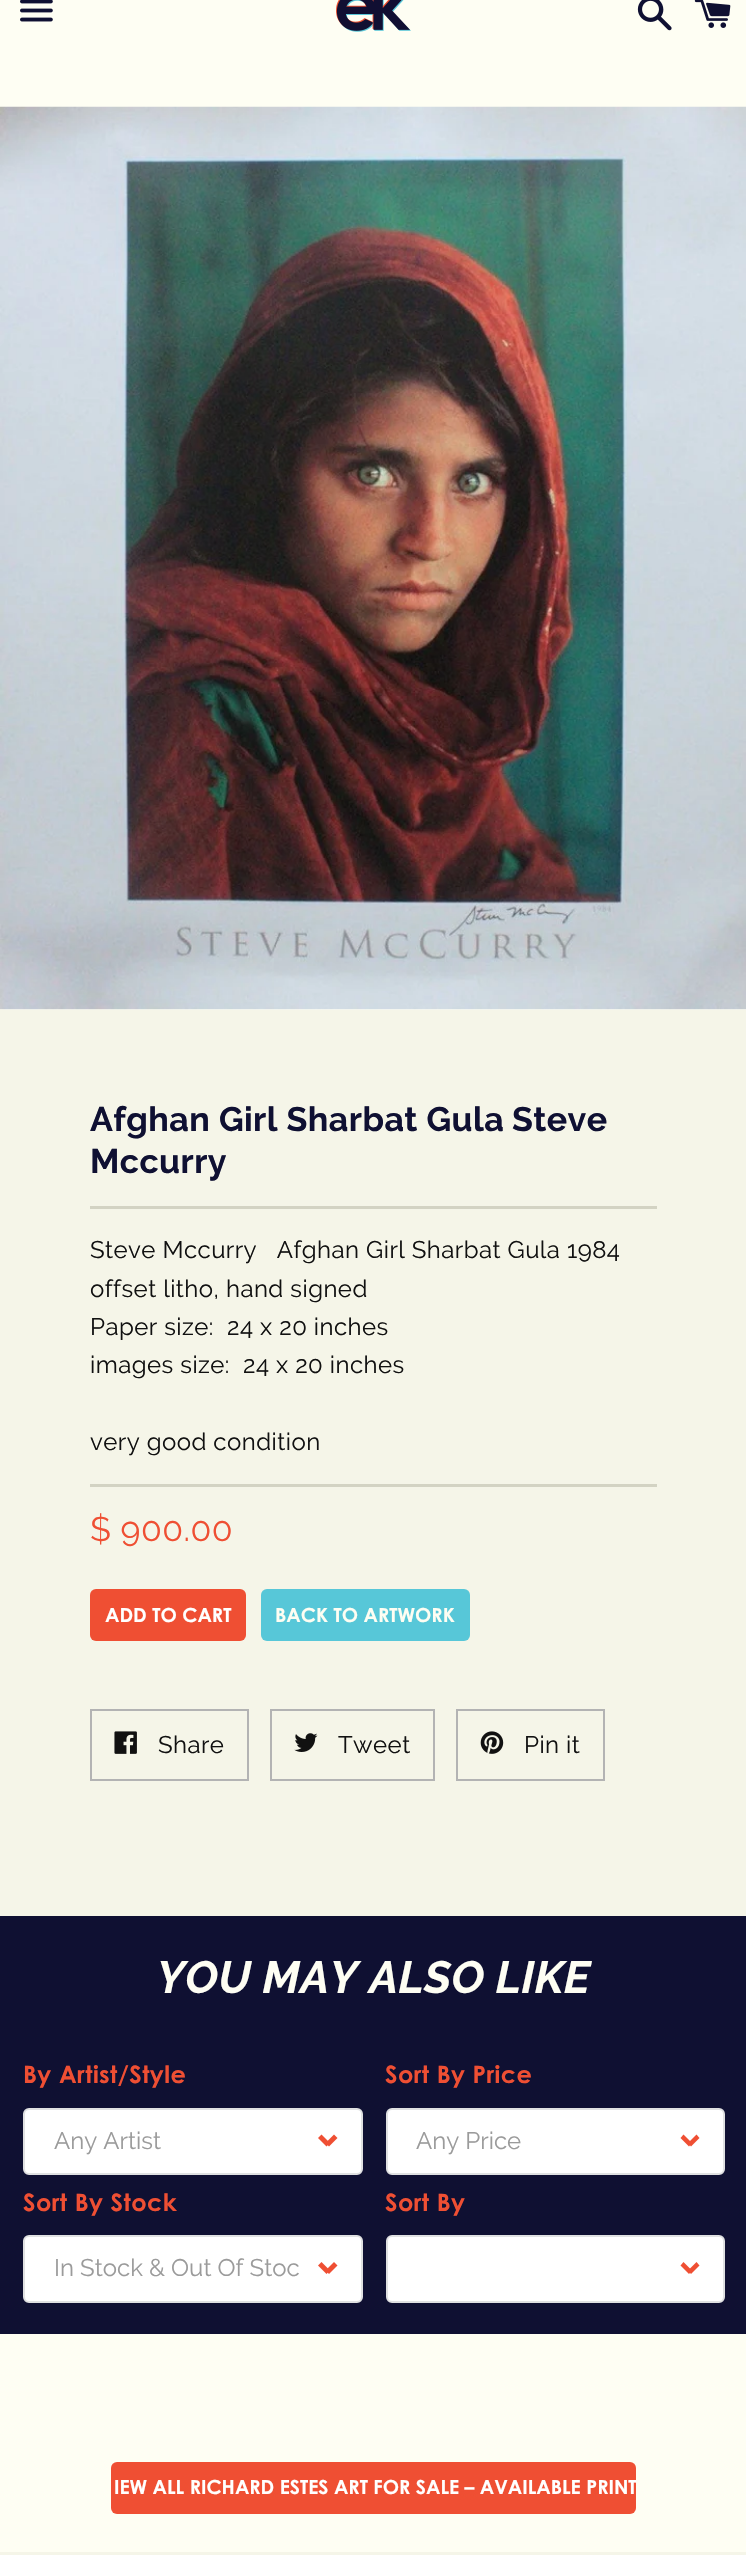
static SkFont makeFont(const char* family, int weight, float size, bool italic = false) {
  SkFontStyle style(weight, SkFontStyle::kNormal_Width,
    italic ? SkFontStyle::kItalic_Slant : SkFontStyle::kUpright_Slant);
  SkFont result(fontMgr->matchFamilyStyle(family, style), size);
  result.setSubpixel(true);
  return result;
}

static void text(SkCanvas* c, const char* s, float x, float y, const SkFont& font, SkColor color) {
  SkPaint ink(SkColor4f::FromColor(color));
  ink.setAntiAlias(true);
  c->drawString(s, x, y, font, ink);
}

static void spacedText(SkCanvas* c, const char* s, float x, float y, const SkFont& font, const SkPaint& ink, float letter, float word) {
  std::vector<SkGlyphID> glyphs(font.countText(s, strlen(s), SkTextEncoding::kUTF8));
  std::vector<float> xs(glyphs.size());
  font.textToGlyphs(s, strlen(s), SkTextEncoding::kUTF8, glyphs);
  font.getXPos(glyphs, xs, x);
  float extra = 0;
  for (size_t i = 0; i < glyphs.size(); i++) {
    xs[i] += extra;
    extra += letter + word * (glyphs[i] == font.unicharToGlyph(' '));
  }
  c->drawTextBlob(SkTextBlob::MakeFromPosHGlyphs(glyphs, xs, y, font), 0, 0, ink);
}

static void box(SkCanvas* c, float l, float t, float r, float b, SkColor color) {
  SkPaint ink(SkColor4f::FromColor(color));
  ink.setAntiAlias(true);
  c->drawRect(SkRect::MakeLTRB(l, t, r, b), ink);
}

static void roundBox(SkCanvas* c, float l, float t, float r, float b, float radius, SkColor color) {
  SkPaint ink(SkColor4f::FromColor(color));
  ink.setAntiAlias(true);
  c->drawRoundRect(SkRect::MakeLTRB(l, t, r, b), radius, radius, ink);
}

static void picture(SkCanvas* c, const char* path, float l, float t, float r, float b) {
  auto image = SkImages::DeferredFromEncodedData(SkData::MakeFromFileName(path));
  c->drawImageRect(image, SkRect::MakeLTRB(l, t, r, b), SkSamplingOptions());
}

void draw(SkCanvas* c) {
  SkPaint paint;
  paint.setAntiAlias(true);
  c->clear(0xfffefef3);
  picture(c, "img_01.png", 20, 0, 53, 22);
  picture(c, "img_02.png", 336, 0, 411, 32);
  picture(c, "img_03.png", 637, 0, 672, 31);
  picture(c, "img_04.png", 694, 0, 731, 28);
  picture(c, "img_05.png", 0, 106, 746, 1010);
  box(c, 0, 1010, 746, 1916, 0xfff5f5e8);
  SkFont face1 = makeFont("Raleway", 700, 34);
  paint.setColor(0xff0f1032);
  spacedText(c, "Afghan Girl Sharbat Gula", 90, 1131, face1, paint, 0.45f, 0);
  spacedText(c, "Steve", 512, 1131, face1, paint, 0.45f, 0);
  spacedText(c, "Mccurry", 90, 1173, face1, paint, 0.45f, 0);
  box(c, 90, 1206, 657, 1209, 0xffd3d3c3);
  SkFont face2 = makeFont("Raleway", 400, 24);
  paint.setColor(0xff111111);
  spacedText(c, "Steve Mccurry   Afghan Girl Sharbat Gula 1984", 90, 1258, face2, paint, 0.45f, 0);
  spacedText(c, "offset litho, hand signed", 90, 1297, face2, paint, 0.45f, 0);
  spacedText(c, "Paper size:", 90, 1335, face2, paint, 0.45f, 0);
  spacedText(c, "24 x 20 inches", 227, 1335, face2, paint, 0.45f, 0);
  spacedText(c, "images size:  24 x 20 inches", 90, 1373, face2, paint, 0.45f, 0);
  spacedText(c, "very good condition", 90, 1450, face2, paint, 0.45f, 0);
  box(c, 90, 1484, 657, 1487, 0xffd3d3c3);
  SkFont face3 = makeFont("Raleway", 400, 34);
  paint.setColor(0xffef4f33);
  spacedText(c, "$ 900.00", 90, 1541, face3, paint, 0.45f, 0);
  roundBox(c, 90, 1589, 246, 1641, 6, 0xffef4f33);
  SkFont face4 = makeFont("Century Gothic", 700, 19.5f);
  text(c, "ADD TO CART", 105, 1622, face4, 0xffffffff);
  roundBox(c, 261, 1589, 470, 1641, 6, 0xff57c7d8);
  text(c, "BACK TO ARTWORK", 275, 1622, face4, 0xfffefef3);
  paint.setStyle(SkPaint::kStroke_Style);
  paint.setStrokeWidth(2);
  paint.setColor(0xffb3b3b3);
  c->drawRect(SkRect::MakeLTRB(91, 1710, 248, 1780), paint);
  picture(c, "img_06.png", 114, 1731, 137, 1754);
  paint.setStyle(SkPaint::kFill_Style);
  paint.setColor(0xff111111);
  spacedText(c, "Share", 158, 1753, face2, paint, 0.45f, 0);
  paint.setStyle(SkPaint::kStroke_Style);
  paint.setColor(0xffb3b3b3);
  c->drawRect(SkRect::MakeLTRB(271, 1710, 434, 1780), paint);
  picture(c, "img_07.png", 294, 1733, 318, 1752);
  paint.setStyle(SkPaint::kFill_Style);
  paint.setColor(0xff111111);
  spacedText(c, "Tweet", 338, 1753, face2, paint, 0.45f, 0);
  paint.setStyle(SkPaint::kStroke_Style);
  paint.setColor(0xffb3b3b3);
  c->drawRect(SkRect::MakeLTRB(457, 1710, 604, 1780), paint);
  picture(c, "img_08.png", 480, 1731, 504, 1754);
  paint.setStyle(SkPaint::kFill_Style);
  paint.setColor(0xff111111);
  spacedText(c, "Pin it", 524, 1753, face2, paint, 0.45f, 0);
  box(c, 0, 1916, 746, 2334, 0xff0f1032);
  SkFont face5 = makeFont("Raleway", 700, 45, true);
  paint.setColor(0xfffefef3);
  spacedText(c, "YOU MAY ALSO LIKE", 157, 1993, face5, paint, 0.45f, 0);
  SkFont face6 = makeFont("Century Gothic", 700, 24);
  paint.setColor(0xffef4f33);
  spacedText(c, "By Artist/Style", 23, 2083, face6, paint, 0.45f, 0);
  paint.setColor(0xffffffff);
  c->drawRoundRect(SkRect::MakeLTRB(24, 2109, 362, 2174), 5, 5, paint);
  paint.setStyle(SkPaint::kStroke_Style);
  paint.setColor(0xffe0e1e2);
  c->drawRoundRect(SkRect::MakeLTRB(24, 2109, 362, 2174), 5, 5, paint);
  text(c, "Any Artist", 54, 2149, face2, 0xff9b9b9b);
  paint.setStyle(SkPaint::kFill_Style);
  paint.setColor(0xffef4f33);
  c->drawPath(SkPathBuilder().moveTo(325.5f, 2143).lineTo(334, 2134.5f).lineTo(337.5f, 2138).lineTo(329, 2146.5f).close().detach(), paint);
  c->drawPath(SkPathBuilder().moveTo(318, 2138).lineTo(321.5f, 2134.5f).lineTo(330, 2143).lineTo(326.5f, 2146.5f).close().detach(), paint);
  spacedText(c, "Sort By Price", 385, 2083, face6, paint, 0.45f, 0);
  paint.setColor(0xffffffff);
  c->drawRoundRect(SkRect::MakeLTRB(387, 2109, 724, 2174), 5, 5, paint);
  paint.setStyle(SkPaint::kStroke_Style);
  paint.setColor(0xffe0e1e2);
  c->drawRoundRect(SkRect::MakeLTRB(387, 2109, 724, 2174), 5, 5, paint);
  text(c, "Any Price", 416, 2149, face2, 0xff9b9b9b);
  paint.setStyle(SkPaint::kFill_Style);
  paint.setColor(0xffef4f33);
  c->drawPath(SkPathBuilder().moveTo(688, 2143).lineTo(696.5f, 2134.5f).lineTo(699.5f, 2138).lineTo(691, 2146.5f).close().detach(), paint);
  c->drawPath(SkPathBuilder().moveTo(680.5f, 2138).lineTo(683.5f, 2134.5f).lineTo(692, 2143).lineTo(689, 2146.5f).close().detach(), paint);
  spacedText(c, "Sort By Stock", 23, 2211, face6, paint, 0.45f, 0);
  paint.setColor(0xffffffff);
  c->drawRoundRect(SkRect::MakeLTRB(24, 2236, 362, 2302), 5, 5, paint);
  paint.setStyle(SkPaint::kStroke_Style);
  paint.setColor(0xffe0e1e2);
  c->drawRoundRect(SkRect::MakeLTRB(24, 2236, 362, 2302), 5, 5, paint);
  text(c, "In Stock & Out Of Stoc", 54, 2276, face2, 0xff9b9b9b);
  paint.setStyle(SkPaint::kFill_Style);
  paint.setColor(0xffef4f33);
  c->drawPath(SkPathBuilder().moveTo(325.5f, 2270.5f).lineTo(334, 2262).lineTo(337.5f, 2265.5f).lineTo(329, 2274).close().detach(), paint);
  c->drawPath(SkPathBuilder().moveTo(318, 2265.5f).lineTo(321.5f, 2262).lineTo(330, 2270.5f).lineTo(326.5f, 2274).close().detach(), paint);
  spacedText(c, "Sort By", 385, 2211, face6, paint, 0.45f, 0);
  paint.setColor(0xffffffff);
  c->drawRoundRect(SkRect::MakeLTRB(387, 2236, 724, 2302), 5, 5, paint);
  paint.setStyle(SkPaint::kStroke_Style);
  paint.setColor(0xffe0e1e2);
  c->drawRoundRect(SkRect::MakeLTRB(387, 2236, 724, 2302), 5, 5, paint);
  paint.setStyle(SkPaint::kFill_Style);
  paint.setColor(0xffef4f33);
  c->drawPath(SkPathBuilder().moveTo(688, 2270.5f).lineTo(696.5f, 2262).lineTo(699.5f, 2265.5f).lineTo(691, 2274).close().detach(), paint);
  c->drawPath(SkPathBuilder().moveTo(680.5f, 2265.5f).lineTo(683.5f, 2262).lineTo(692, 2270.5f).lineTo(689, 2274).close().detach(), paint);
  roundBox(c, 111, 2462, 636, 2514, 6, 0xffef4f33);
  text(c, "IEW ALL RICHARD ESTES ART FOR SALE – AVAILABLE PRINT", 114, 2494, face4, 0xffffffff);
  box(c, 0, 2552, 746, 2555, 0xfff5f5e8);
}
